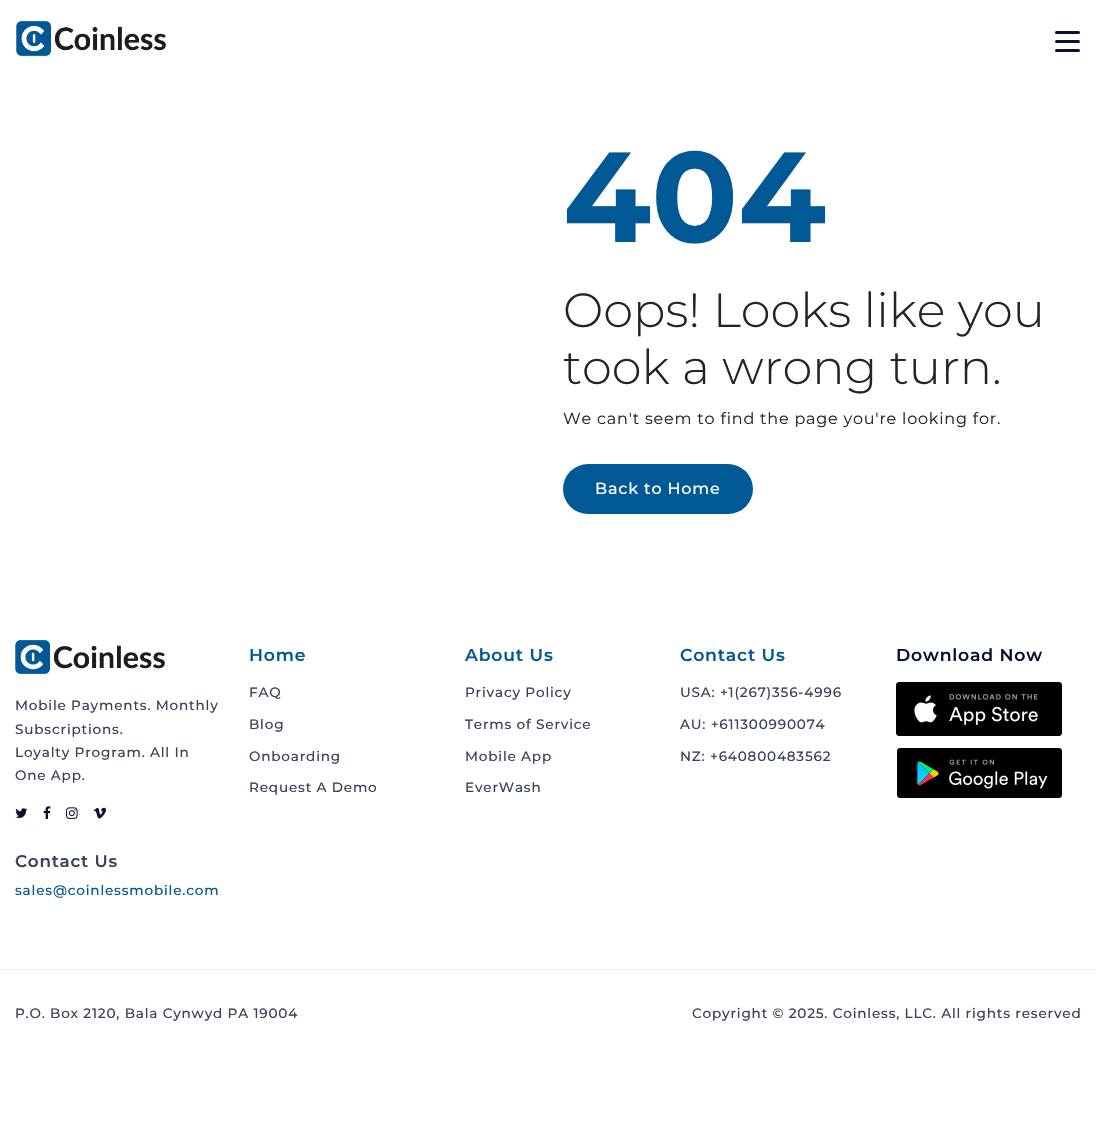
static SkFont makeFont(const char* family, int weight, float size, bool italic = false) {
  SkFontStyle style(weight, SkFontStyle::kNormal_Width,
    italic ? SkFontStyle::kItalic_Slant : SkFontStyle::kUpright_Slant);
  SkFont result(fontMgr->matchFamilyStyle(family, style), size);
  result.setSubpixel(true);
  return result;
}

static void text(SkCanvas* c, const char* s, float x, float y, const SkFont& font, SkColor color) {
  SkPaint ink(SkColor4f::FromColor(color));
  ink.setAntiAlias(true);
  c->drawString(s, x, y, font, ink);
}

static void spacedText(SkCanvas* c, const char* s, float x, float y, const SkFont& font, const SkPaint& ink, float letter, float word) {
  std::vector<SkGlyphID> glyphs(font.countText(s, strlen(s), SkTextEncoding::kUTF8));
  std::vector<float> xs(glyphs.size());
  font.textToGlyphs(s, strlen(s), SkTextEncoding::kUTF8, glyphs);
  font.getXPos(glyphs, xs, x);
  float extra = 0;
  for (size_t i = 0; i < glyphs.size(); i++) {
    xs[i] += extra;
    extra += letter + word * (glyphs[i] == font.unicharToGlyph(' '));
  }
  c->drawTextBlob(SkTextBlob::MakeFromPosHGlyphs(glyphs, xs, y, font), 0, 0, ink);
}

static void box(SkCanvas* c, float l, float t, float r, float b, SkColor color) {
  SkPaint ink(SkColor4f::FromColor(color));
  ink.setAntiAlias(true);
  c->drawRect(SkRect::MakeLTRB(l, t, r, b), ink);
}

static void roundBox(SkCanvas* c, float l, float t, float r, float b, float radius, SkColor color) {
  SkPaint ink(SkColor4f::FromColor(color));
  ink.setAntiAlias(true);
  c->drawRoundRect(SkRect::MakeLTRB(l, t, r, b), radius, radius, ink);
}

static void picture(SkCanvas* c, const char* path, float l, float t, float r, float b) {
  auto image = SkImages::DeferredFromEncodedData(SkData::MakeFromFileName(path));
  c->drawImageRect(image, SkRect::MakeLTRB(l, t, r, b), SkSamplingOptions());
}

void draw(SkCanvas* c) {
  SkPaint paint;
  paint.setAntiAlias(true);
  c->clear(0xffffffff);
  picture(c, "img_01.png", 16, 20, 166, 57);
  roundBox(c, 1055, 31, 1080, 34, 1.5f, 0xff0a102f);
  roundBox(c, 1055, 40, 1080, 43, 1.5f, 0xff0a102f);
  roundBox(c, 1055, 49, 1080, 52, 1.5f, 0xff0a102f);
  SkFont face1 = makeFont("Montserrat", 700, 128);
  text(c, "404", 563, 242, face1, 0xff005894);
  SkFont face2 = makeFont("Montserrat", 300, 48);
  text(c, "Oops! Looks like you", 563, 327, face2, 0xff212529);
  text(c, "took a wrong turn.", 563, 384, face2, 0xff212529);
  SkFont face3 = makeFont("Montserrat", 400, 16);
  paint.setColor(0xff212529);
  spacedText(c, "We can't seem to find the page you're looking for.", 563, 424, face3, paint, 0.8f, 0);
  roundBox(c, 563, 464, 753, 514, 25, 0xff005894);
  SkFont face4 = makeFont("Montserrat", 500, 16);
  paint.setColor(0xffffffff);
  spacedText(c, "Back to Home", 595, 494, face4, paint, 0.8f, 0);
  box(c, 0, 969, 1096, 970, 0xffe9ecef);
  SkFont face5 = makeFont("Montserrat", 600, 17.25f);
  paint.setColor(0xff005894);
  spacedText(c, "Home", 249, 661, face5, paint, 0.8f, 0);
  SkFont face6 = makeFont("Montserrat", 500, 13.6f);
  paint.setColor(0xff3b4059);
  spacedText(c, "FAQ", 249, 697, face6, paint, 0.8f, 0);
  spacedText(c, "Blog", 249, 729, face6, paint, 0.8f, 0);
  spacedText(c, "Onboarding", 249, 761, face6, paint, 0.8f, 0);
  spacedText(c, "Request A Demo", 249, 792, face6, paint, 0.8f, 0);
  paint.setColor(0xff005894);
  spacedText(c, "About Us", 465, 661, face5, paint, 0.8f, 0);
  paint.setColor(0xff3b4059);
  spacedText(c, "Privacy Policy", 465, 697, face6, paint, 0.8f, 0);
  spacedText(c, "Terms of Service", 465, 729, face6, paint, 0.8f, 0);
  spacedText(c, "Mobile App", 465, 761, face6, paint, 0.8f, 0);
  spacedText(c, "EverWash", 465, 792, face6, paint, 0.8f, 0);
  paint.setColor(0xff005894);
  spacedText(c, "Contact Us", 680, 661, face5, paint, 0.8f, 0);
  paint.setColor(0xff3b4059);
  spacedText(c, "USA: +1(267)356-4996", 680, 697, face6, paint, 0.8f, 0);
  spacedText(c, "AU: +611300990074", 680, 729, face6, paint, 0.8f, 0);
  spacedText(c, "NZ: +640800483562", 680, 761, face6, paint, 0.8f, 0);
  paint.setColor(0xff0a102f);
  spacedText(c, "Download Now", 896, 661, face5, paint, 0.8f, 0);
  picture(c, "img_02.png", 896, 682, 1062, 736);
  picture(c, "img_03.png", 897, 748, 1062, 798);
  picture(c, "img_04.png", 15, 640, 165, 674);
  paint.setColor(0xff3b4059);
  spacedText(c, "Mobile Payments. Monthly", 15, 710, face6, paint, 0.8f, 0);
  spacedText(c, "Subscriptions.", 15, 734, face6, paint, 0.8f, 0);
  spacedText(c, "Loyalty Program. All In", 15, 757, face6, paint, 0.8f, 0);
  spacedText(c, "One App.", 15, 780, face6, paint, 0.8f, 0);
  picture(c, "img_05.png", 15, 808, 28, 818);
  picture(c, "img_06.png", 43, 806, 51, 819);
  picture(c, "img_07.png", 66, 807, 78, 819);
  picture(c, "img_08.png", 93, 807, 106, 819);
  SkFont face7 = makeFont("Montserrat", 600, 16.75f);
  spacedText(c, "Contact Us", 15, 867, face7, paint, 0.8f, 0);
  paint.setColor(0xff005894);
  spacedText(c, "sales@coinlessmobile.com", 15, 895, face6, paint, 0.8f, 0);
  paint.setColor(0xff3b4059);
  spacedText(c, "P.O. Box 2120, Bala Cynwyd PA 19004", 15, 1018, face6, paint, 0.8f, 0);
  spacedText(c, "Copyright © 2025. Coinless, LLC. All rights reserved", 692, 1018, face6, paint, 0.8f, 0);
}
